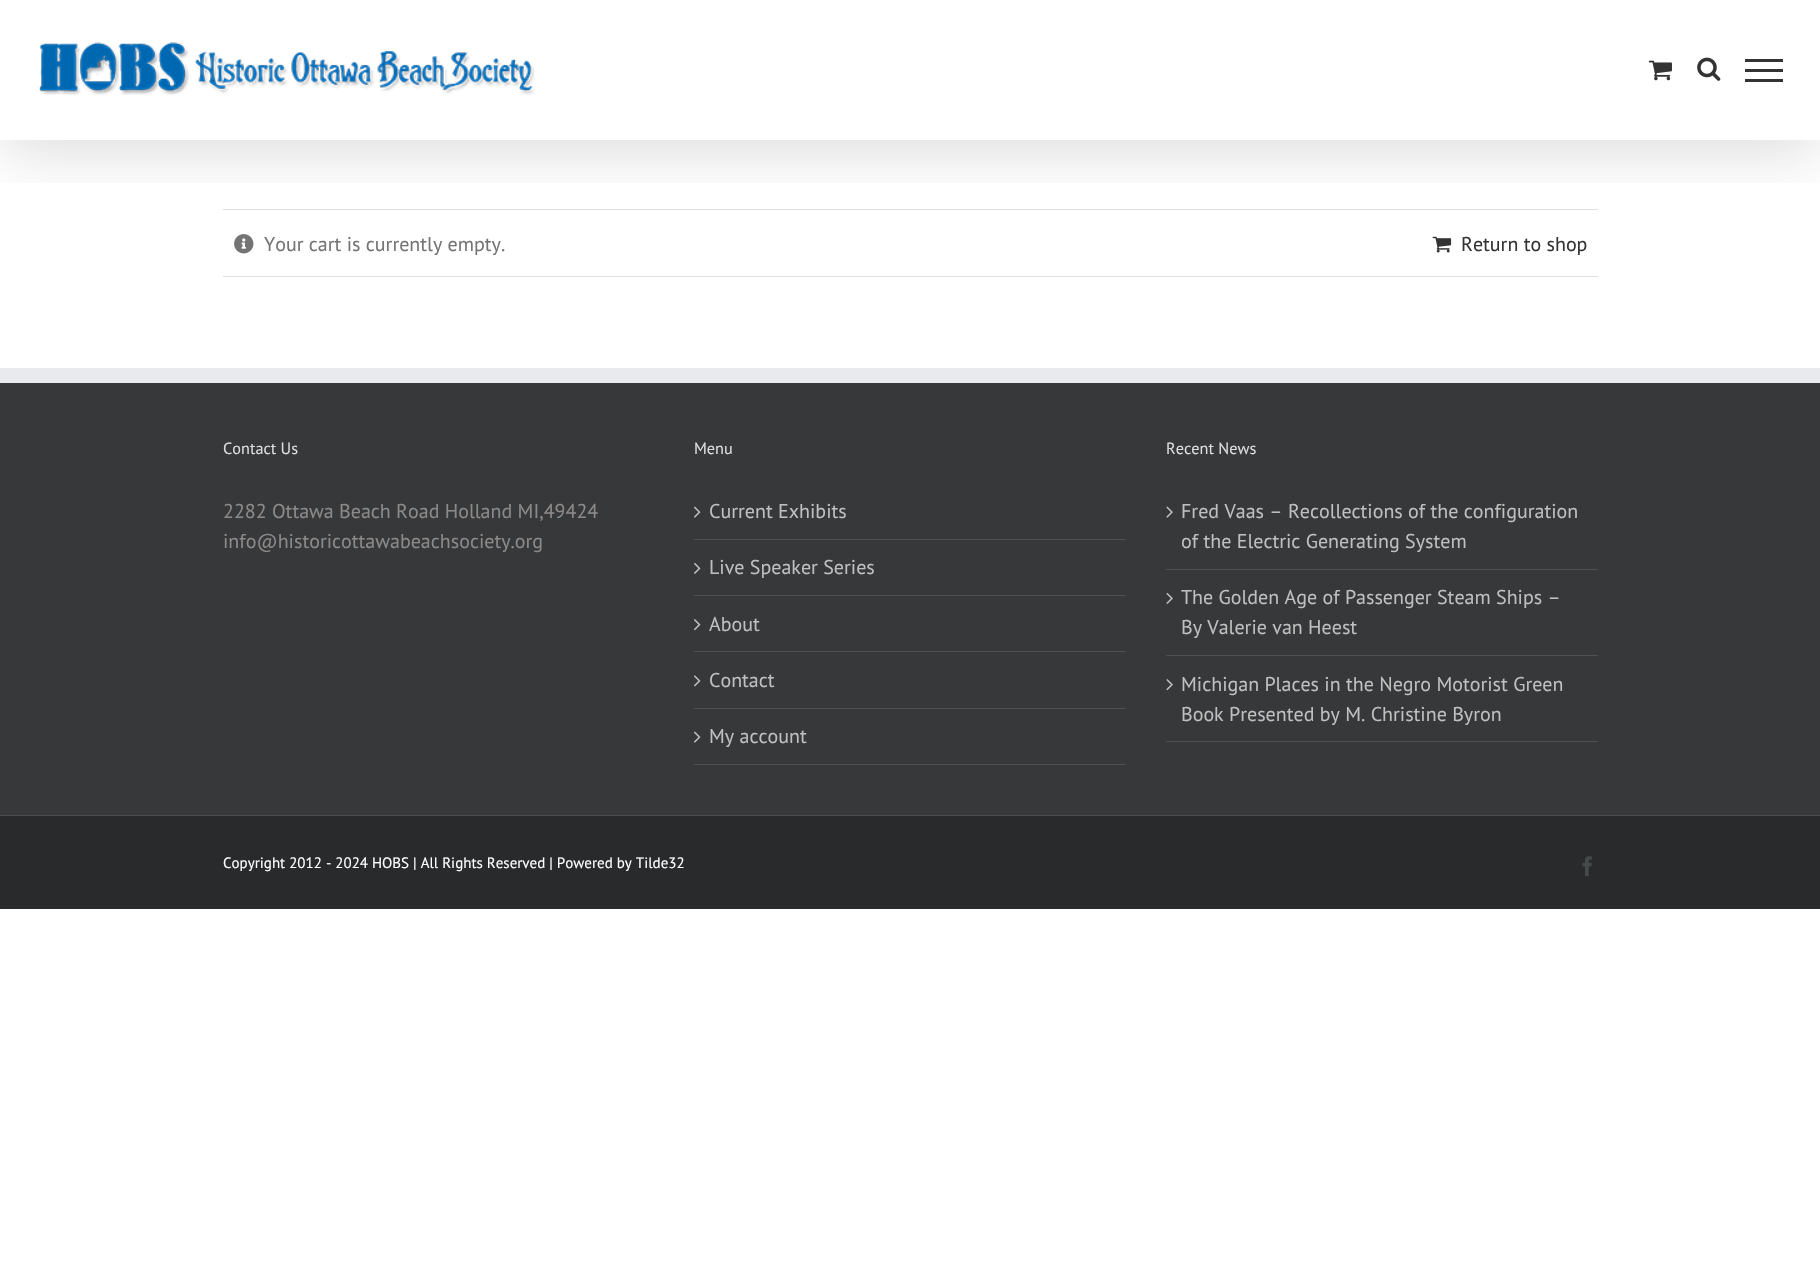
static SkFont makeFont(const char* family, int weight, float size, bool italic = false) {
  SkFontStyle style(weight, SkFontStyle::kNormal_Width,
    italic ? SkFontStyle::kItalic_Slant : SkFontStyle::kUpright_Slant);
  SkFont result(fontMgr->matchFamilyStyle(family, style), size);
  result.setSubpixel(true);
  return result;
}

static void text(SkCanvas* c, const char* s, float x, float y, const SkFont& font, SkColor color) {
  SkPaint ink(SkColor4f::FromColor(color));
  ink.setAntiAlias(true);
  c->drawString(s, x, y, font, ink);
}

static void box(SkCanvas* c, float l, float t, float r, float b, SkColor color) {
  SkPaint ink(SkColor4f::FromColor(color));
  ink.setAntiAlias(true);
  c->drawRect(SkRect::MakeLTRB(l, t, r, b), ink);
}

static void picture(SkCanvas* c, const char* path, float l, float t, float r, float b) {
  auto image = SkImages::DeferredFromEncodedData(SkData::MakeFromFileName(path));
  c->drawImageRect(image, SkRect::MakeLTRB(l, t, r, b), SkSamplingOptions());
}

void draw(SkCanvas* c) {
  SkPaint paint;
  paint.setAntiAlias(true);
  c->clear(0xffffffff);
  box(c, 223, 209, 1598, 210, 0xffe0dede);
  picture(c, "img_04.png", 234, 234, 254, 254);
  picture(c, "img_05.png", 1432, 236, 1452, 253);
  c->save();
  c->clipRect(SkRect::MakeLTRB(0, 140, 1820, 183));
  paint.setColor(0x24000000);
  paint.setMaskFilter(SkMaskFilter::MakeBlur(kNormal_SkBlurStyle, 31));
  c->drawRect(SkRect::MakeLTRB(3, 15, 1818, 150), paint);
  paint.setMaskFilter(nullptr);
  c->restore();
  picture(c, "img_01.png", 39, 41, 535, 95);
  picture(c, "img_02.png", 1648, 60, 1672, 81);
  picture(c, "img_03.png", 1697, 57, 1721, 81);
  box(c, 1745, 59, 1783, 62, 0xff333333);
  box(c, 1745, 69, 1783, 72, 0xff333333);
  box(c, 1745, 79, 1783, 82, 0xff333333);
  box(c, 223, 276, 1598, 277, 0xffe0dede);
  SkFont face1 = makeFont("PT Sans", 400, 20);
  text(c, "Your cart is currently empty.", 264, 251, face1, 0xff747474);
  text(c, "Return to shop", 1461, 251, face1, 0xff333333);
  box(c, 0, 383, 1820, 815, 0xff363839);
  box(c, 0, 368, 1820, 383, 0xffe9eaee);
  SkFont face2 = makeFont("PT Sans", 400, 16.25f);
  text(c, "Contact Us", 223, 454, face2, 0xffdddddd);
  text(c, "2282 Ottawa Beach Road Holland MI,49424", 223, 518, face1, 0xff8c8989);
  text(c, "info@historicottawabeachsociety.org", 223, 548, face1, 0xff8c8989);
  text(c, "Menu", 694, 454, face2, 0xffdddddd);
  box(c, 694, 539, 1126, 540, 0xff505152);
  picture(c, "img_06.png", 694, 506, 701, 518);
  text(c, "Current Exhibits", 709, 518, face1, 0xffbfbfbf);
  box(c, 694, 595, 1126, 596, 0xff505152);
  picture(c, "img_07.png", 694, 562, 701, 574);
  text(c, "Live Speaker Series", 709, 574, face1, 0xffbfbfbf);
  box(c, 694, 651, 1126, 652, 0xff505152);
  picture(c, "img_08.png", 694, 619, 701, 631);
  text(c, "About", 709, 631, face1, 0xffbfbfbf);
  box(c, 694, 708, 1126, 709, 0xff505152);
  picture(c, "img_09.png", 694, 675, 701, 687);
  text(c, "Contact", 709, 687, face1, 0xffbfbfbf);
  box(c, 694, 764, 1126, 765, 0xff505152);
  picture(c, "img_06.png", 694, 731, 701, 743);
  text(c, "My account", 709, 743, face1, 0xffbfbfbf);
  text(c, "Recent News", 1166, 454, face2, 0xffdddddd);
  box(c, 1166, 569, 1598, 570, 0xff505152);
  picture(c, "img_10.png", 1166, 506, 1173, 518);
  text(c, "Fred Vaas – Recollections of the configuration", 1181, 518, face1, 0xffbfbfbf);
  text(c, "of the Electric Generating System", 1181, 548, face1, 0xffbfbfbf);
  box(c, 1166, 655, 1598, 656, 0xff505152);
  picture(c, "img_11.png", 1166, 592, 1173, 604);
  text(c, "The Golden Age of Passenger Steam Ships –", 1181, 604, face1, 0xffbfbfbf);
  text(c, "By Valerie van Heest", 1181, 634, face1, 0xffbfbfbf);
  box(c, 1166, 741, 1598, 742, 0xff505152);
  picture(c, "img_12.png", 1166, 679, 1173, 691);
  text(c, "Michigan Places in the Negro Motorist Green", 1181, 691, face1, 0xffbfbfbf);
  text(c, "Book Presented by M. Christine Byron", 1181, 721, face1, 0xffbfbfbf);
  box(c, 0, 816, 1820, 909, 0xff282a2b);
  box(c, 0, 815, 1820, 816, 0xff4b4c4d);
  SkFont face3 = makeFont("PT Sans", 400, 15);
  text(c, "Copyright 2012 - 2024 HOBS | All Rights Reserved | Powered by Tilde32", 223, 868, face3, 0xffffffff);
  picture(c, "img_13.png", 1582, 856, 1592, 877);
}
